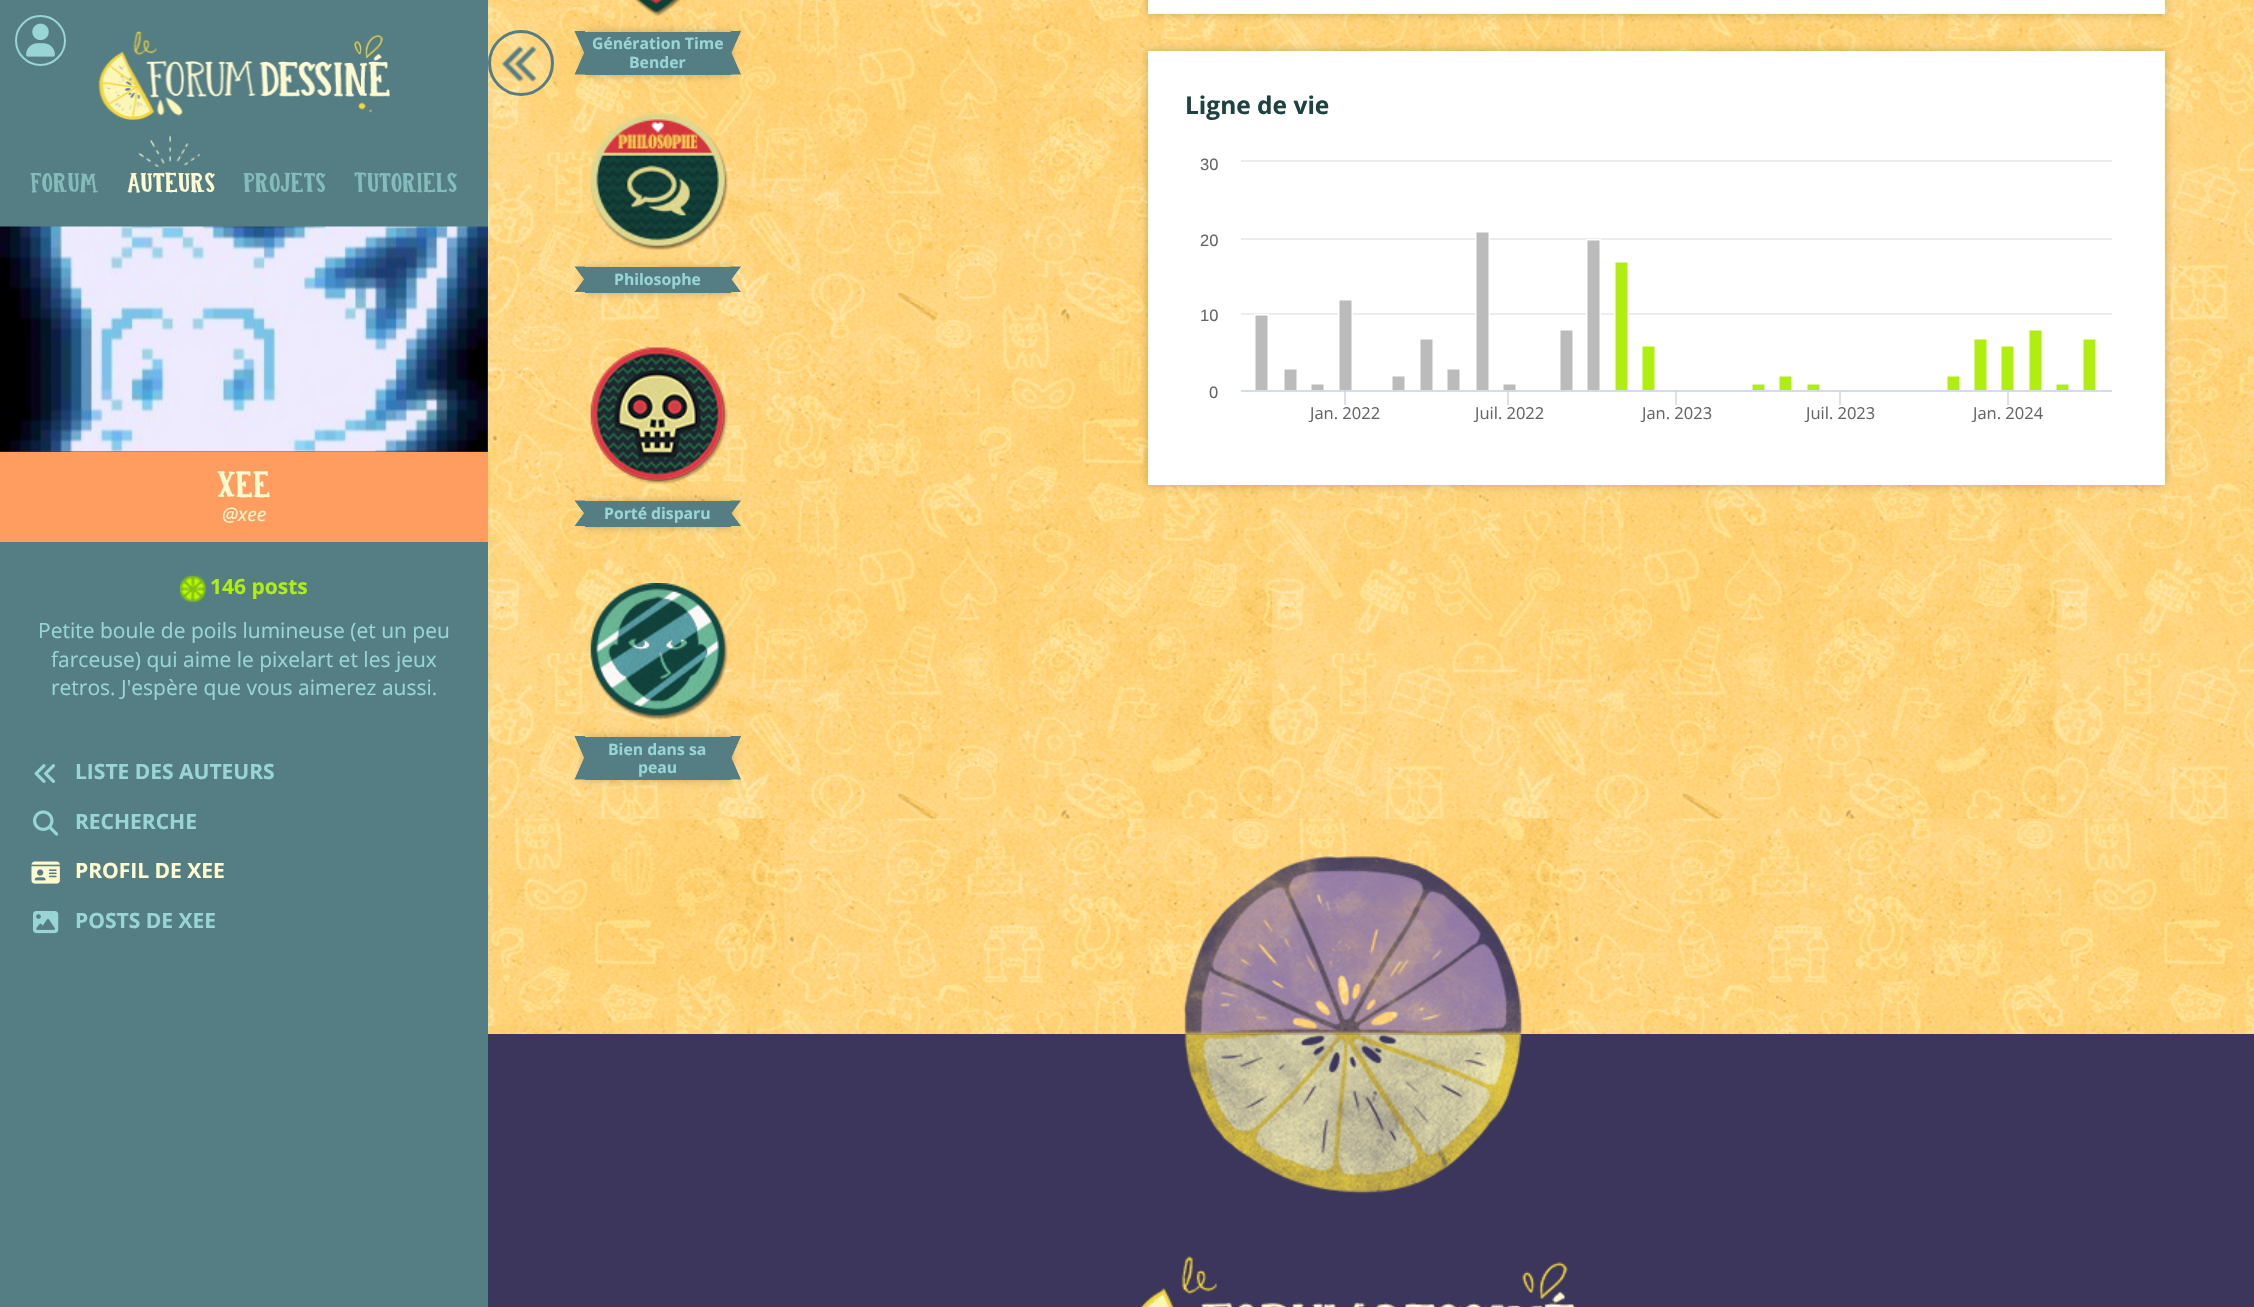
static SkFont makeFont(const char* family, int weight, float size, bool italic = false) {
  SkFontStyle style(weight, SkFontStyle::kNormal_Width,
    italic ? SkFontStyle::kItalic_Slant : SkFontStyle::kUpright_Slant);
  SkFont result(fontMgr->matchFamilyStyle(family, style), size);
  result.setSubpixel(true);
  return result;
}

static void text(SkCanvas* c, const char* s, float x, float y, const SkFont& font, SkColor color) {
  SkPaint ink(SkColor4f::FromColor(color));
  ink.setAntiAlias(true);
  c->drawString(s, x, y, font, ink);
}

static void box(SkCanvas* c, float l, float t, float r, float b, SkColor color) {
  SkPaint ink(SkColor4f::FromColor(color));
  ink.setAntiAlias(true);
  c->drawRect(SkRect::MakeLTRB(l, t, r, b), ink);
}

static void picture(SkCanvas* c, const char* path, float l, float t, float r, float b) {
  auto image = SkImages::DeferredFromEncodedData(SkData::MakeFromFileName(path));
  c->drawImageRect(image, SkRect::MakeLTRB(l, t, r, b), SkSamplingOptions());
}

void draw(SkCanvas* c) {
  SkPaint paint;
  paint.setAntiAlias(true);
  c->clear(0xffffffff);
  picture(c, "img_01.png", 488, 818, 2254, 1034);
  box(c, 0, 0, 488, 1307, 0xff557e84);
  paint.setStyle(SkPaint::kStroke_Style);
  paint.setStrokeWidth(2);
  paint.setColor(0xff98d5d4);
  c->drawCircle(40.5f, 40.5f, 24.5f, paint);
  picture(c, "img_02.png", 26, 23, 55, 57);
  picture(c, "img_03.png", 98, 31, 390, 120);
  SkFont face1 = makeFont("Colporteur", 400, 27);
  text(c, "Forum", 30, 192, face1, 0xff83bcbb);
  picture(c, "img_04.png", 138, 135, 201, 167);
  text(c, "Auteurs", 127, 192, face1, 0xfffefbcf);
  text(c, "Projets", 243, 192, face1, 0xff83bcbb);
  text(c, "Tutoriels", 354, 192, face1, 0xff83bcbb);
  box(c, 0, 227, 488, 452, 0xff3c365c);
  picture(c, "img_05.png", 0, 226, 488, 452);
  box(c, 0, 452, 488, 542, 0xffff9c5f);
  SkFont face2 = makeFont("Colporteur", 400, 36);
  text(c, "Xee", 217, 497, face2, 0xfffefbcf);
  SkFont face3 = makeFont("Open Sans", 400, 19, true);
  text(c, "@xee", 222, 521, face3, 0xfffefbcf);
  picture(c, "img_06.png", 180, 574, 206, 602);
  SkFont face4 = makeFont("Open Sans", 700, 21);
  text(c, "146 posts", 210, 594, face4, 0xffafee0f);
  SkFont face5 = makeFont("Open Sans", 400, 21);
  text(c, "Petite boule de poils lumineuse (et un peu", 38, 638, face5, 0xff98d5d4);
  text(c, "farceuse) qui aime le pixelart et les jeux", 51, 667, face5, 0xff98d5d4);
  text(c, "retros. J'espère que vous aimerez aussi.", 51, 695, face5, 0xff98d5d4);
  picture(c, "img_07.png", 34, 764, 55, 783);
  text(c, "LISTE DES AUTEURS", 75, 779, face4, 0xff98d5d4);
  picture(c, "img_08.png", 33, 810, 59, 836);
  text(c, "RECHERCHE", 75, 829, face4, 0xff98d5d4);
  picture(c, "img_09.png", 31, 861, 60, 884);
  text(c, "PROFIL DE XEE", 75, 878, face4, 0xfffefbcf);
  picture(c, "img_10.png", 33, 911, 59, 934);
  text(c, "POSTS DE XEE", 75, 928, face4, 0xff98d5d4);
  picture(c, "img_11.png", 488, 0, 2254, 819);
  picture(c, "img_12.png", 501, 46, 537, 82);
  paint.setStrokeWidth(3);
  paint.setColor(0xff557e84);
  c->drawCircle(521, 63, 31.5f, paint);
  picture(c, "img_13.png", 634, 0, 681, 16);
  paint.setStyle(SkPaint::kFill_Style);
  paint.setColor(0x38000000);
  paint.setMaskFilter(SkMaskFilter::MakeBlur(kNormal_SkBlurStyle, 4.5f));
  c->drawRect(SkRect::MakeLTRB(585, 32, 731, 75), paint);
  paint.setMaskFilter(nullptr);
  box(c, 585, 32, 731, 75, 0xff557e84);
  picture(c, "img_14.png", 574, 31, 585, 75);
  SkFont face6 = makeFont("Open Sans", 700, 15.75f);
  text(c, "Génération Time", 592, 49, face6, 0xff98d5d4);
  picture(c, "img_15.png", 730, 31, 741, 75);
  text(c, "Bender", 629, 68, face6, 0xff98d5d4);
  picture(c, "img_16.png", 590, 113, 728, 251);
  paint.setMaskFilter(SkMaskFilter::MakeBlur(kNormal_SkBlurStyle, 4.5f));
  c->drawRect(SkRect::MakeLTRB(585, 267, 731, 293), paint);
  paint.setMaskFilter(nullptr);
  box(c, 585, 267, 731, 293, 0xff557e84);
  picture(c, "img_17.png", 574, 266, 585, 292);
  text(c, "Philosophe", 614, 285, face6, 0xff98d5d4);
  picture(c, "img_18.png", 730, 266, 741, 292);
  picture(c, "img_19.png", 590, 347, 728, 484);
  paint.setMaskFilter(SkMaskFilter::MakeBlur(kNormal_SkBlurStyle, 4.5f));
  c->drawRect(SkRect::MakeLTRB(585, 501, 731, 527), paint);
  paint.setMaskFilter(nullptr);
  box(c, 585, 501, 731, 527, 0xff557e84);
  picture(c, "img_20.png", 574, 500, 585, 526);
  text(c, "Porté disparu", 604, 519, face6, 0xff98d5d4);
  picture(c, "img_21.png", 730, 500, 741, 526);
  picture(c, "img_22.png", 590, 583, 728, 720);
  paint.setMaskFilter(SkMaskFilter::MakeBlur(kNormal_SkBlurStyle, 4.5f));
  c->drawRect(SkRect::MakeLTRB(585, 737, 731, 780), paint);
  paint.setMaskFilter(nullptr);
  box(c, 585, 737, 731, 780, 0xff557e84);
  picture(c, "img_23.png", 574, 736, 585, 780);
  text(c, "Bien dans sa", 608, 755, face6, 0xff98d5d4);
  picture(c, "img_24.png", 730, 736, 741, 780);
  text(c, "peau", 638, 773, face6, 0xff98d5d4);
  paint.setMaskFilter(SkMaskFilter::MakeBlur(kNormal_SkBlurStyle, 4.5f));
  c->drawRect(SkRect::MakeLTRB(1148, -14, 2165, 14), paint);
  paint.setMaskFilter(nullptr);
  box(c, 1148, 0, 2165, 14, 0xffffffff);
  paint.setMaskFilter(SkMaskFilter::MakeBlur(kNormal_SkBlurStyle, 4.5f));
  c->drawRect(SkRect::MakeLTRB(1148, 51, 2165, 485), paint);
  paint.setMaskFilter(nullptr);
  box(c, 1148, 51, 2165, 485, 0xffffffff);
  SkFont face7 = makeFont("Open Sans", 700, 24.5f);
  text(c, "Ligne de vie", 1185, 114, face7, 0xff1e4242);
  SkFont face8 = makeFont("Liberation Sans", 400, 16.5f);
  text(c, "30", 1200, 170, face8, 0xff666666);
  picture(c, "img_25.png", 1241, 160, 2112, 405);
  text(c, "20", 1200, 246, face8, 0xff666666);
  text(c, "10", 1200, 321, face8, 0xff666666);
  text(c, "0", 1209, 398, face8, 0xff666666);
  SkFont face9 = makeFont("Open Sans", 400, 16.5f);
  text(c, "Jan. 2022", 1310, 419, face9, 0xff666666);
  text(c, "Juil. 2022", 1475, 419, face9, 0xff666666);
  text(c, "Jan. 2023", 1642, 419, face9, 0xff666666);
  text(c, "Juil. 2023", 1806, 419, face9, 0xff666666);
  text(c, "Jan. 2024", 1973, 419, face9, 0xff666666);
  box(c, 488, 1034, 2254, 1307, 0xff3c365c);
  picture(c, "img_26.png", 1183, 856, 1523, 1194);
  picture(c, "img_27.png", 1141, 1256, 1576, 1307);
}
